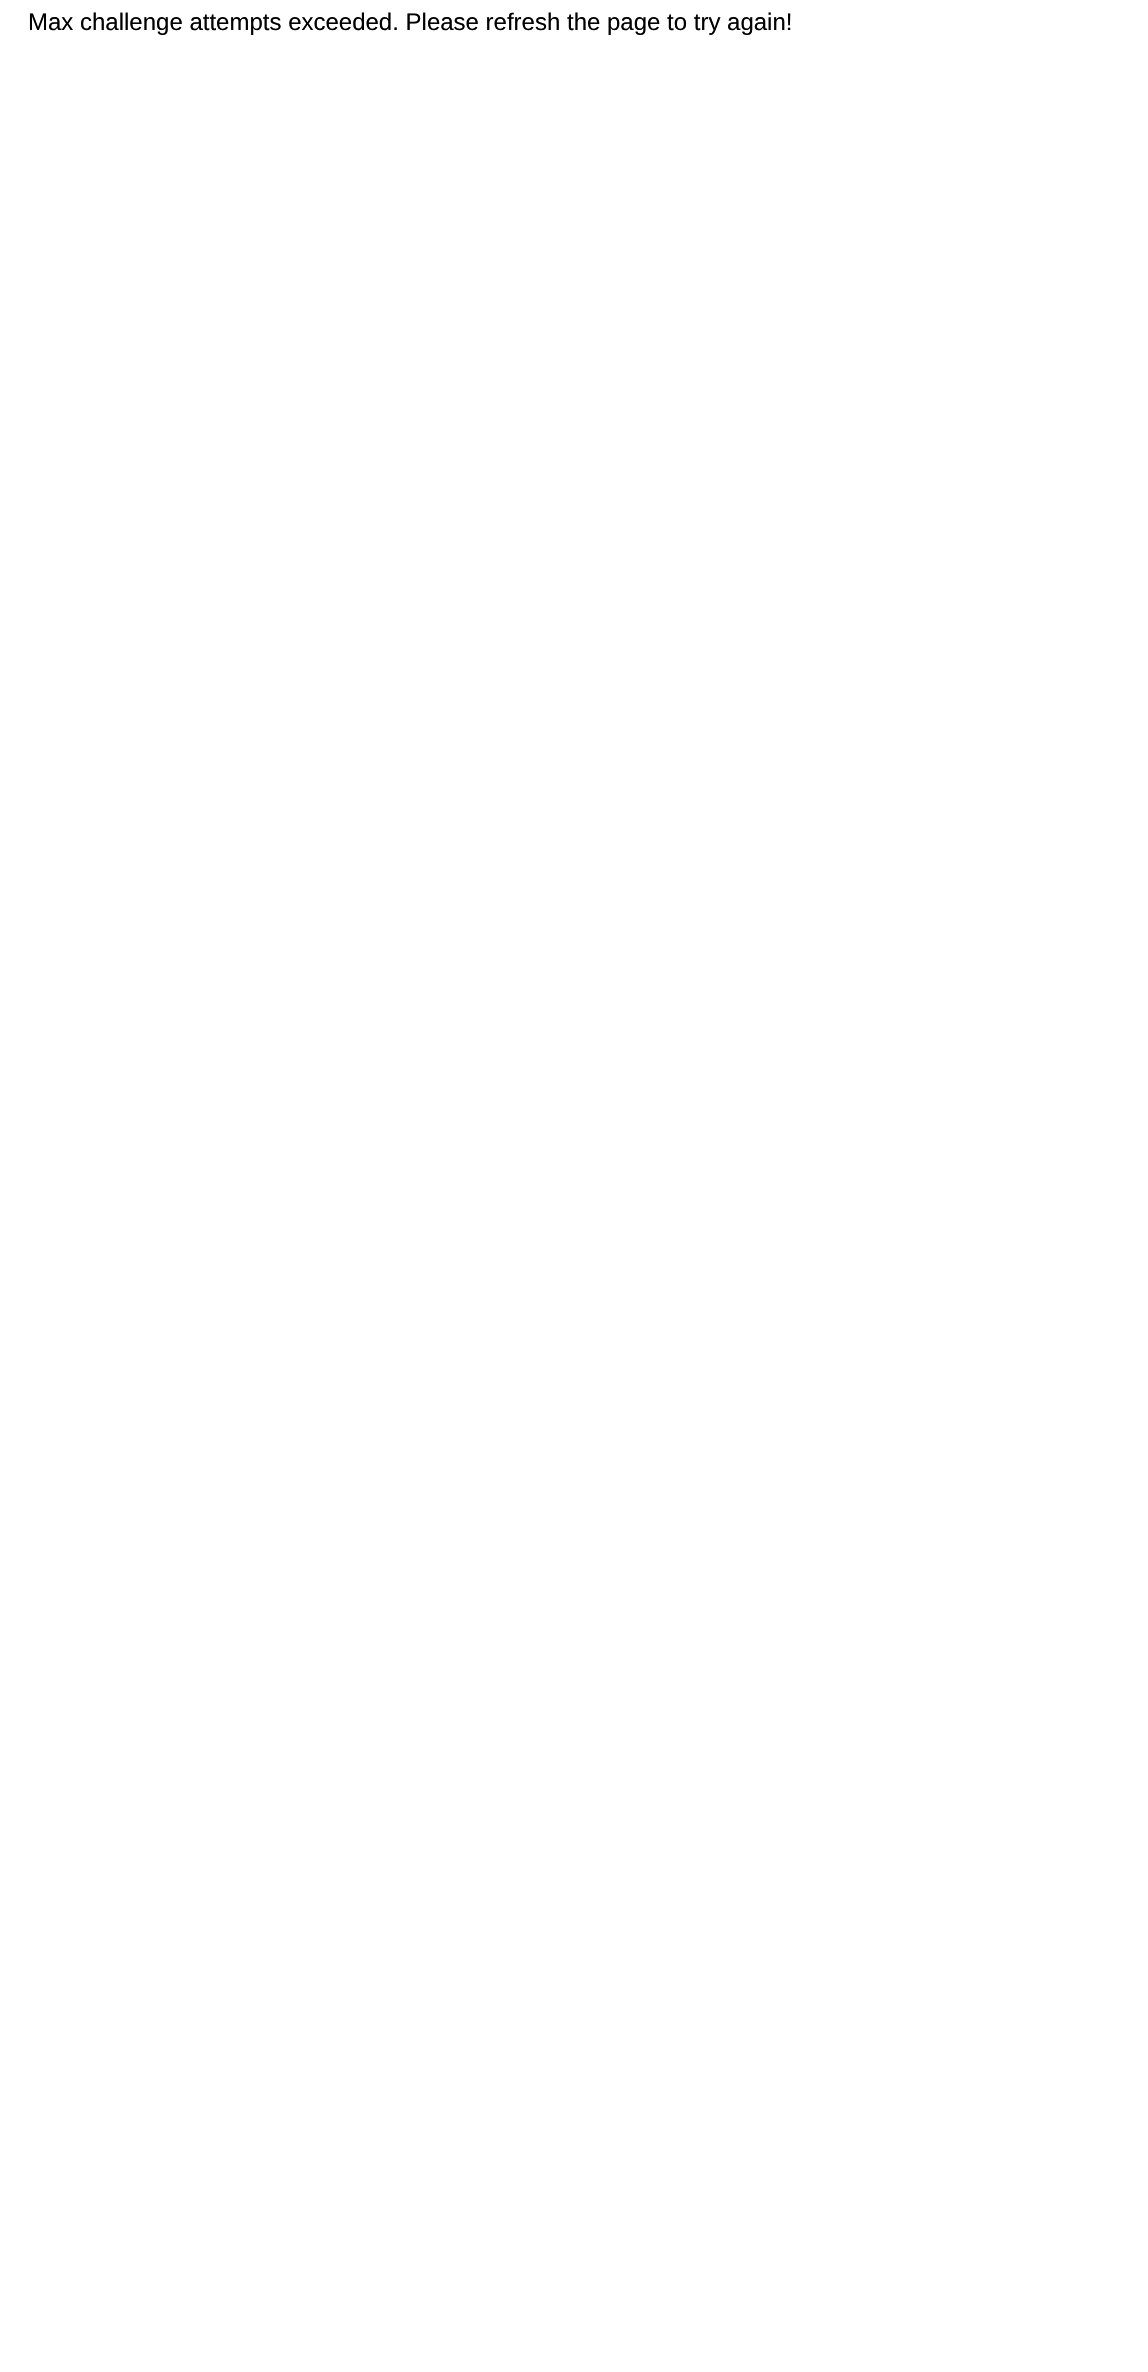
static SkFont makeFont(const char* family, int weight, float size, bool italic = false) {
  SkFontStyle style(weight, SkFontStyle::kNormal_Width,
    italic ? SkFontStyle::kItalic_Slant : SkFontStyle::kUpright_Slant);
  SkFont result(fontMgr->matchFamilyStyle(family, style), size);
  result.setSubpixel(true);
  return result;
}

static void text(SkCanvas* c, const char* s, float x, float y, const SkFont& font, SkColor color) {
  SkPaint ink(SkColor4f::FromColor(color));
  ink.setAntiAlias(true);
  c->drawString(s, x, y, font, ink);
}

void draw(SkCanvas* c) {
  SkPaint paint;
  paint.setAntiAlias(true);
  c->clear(0xffffffff);
  SkFont face1 = makeFont("Liberation Sans", 400, 24);
  text(c, "Max challenge attempts exceeded. Please refresh the page to try again!", 28, 30, face1, 0xff000000);
}
